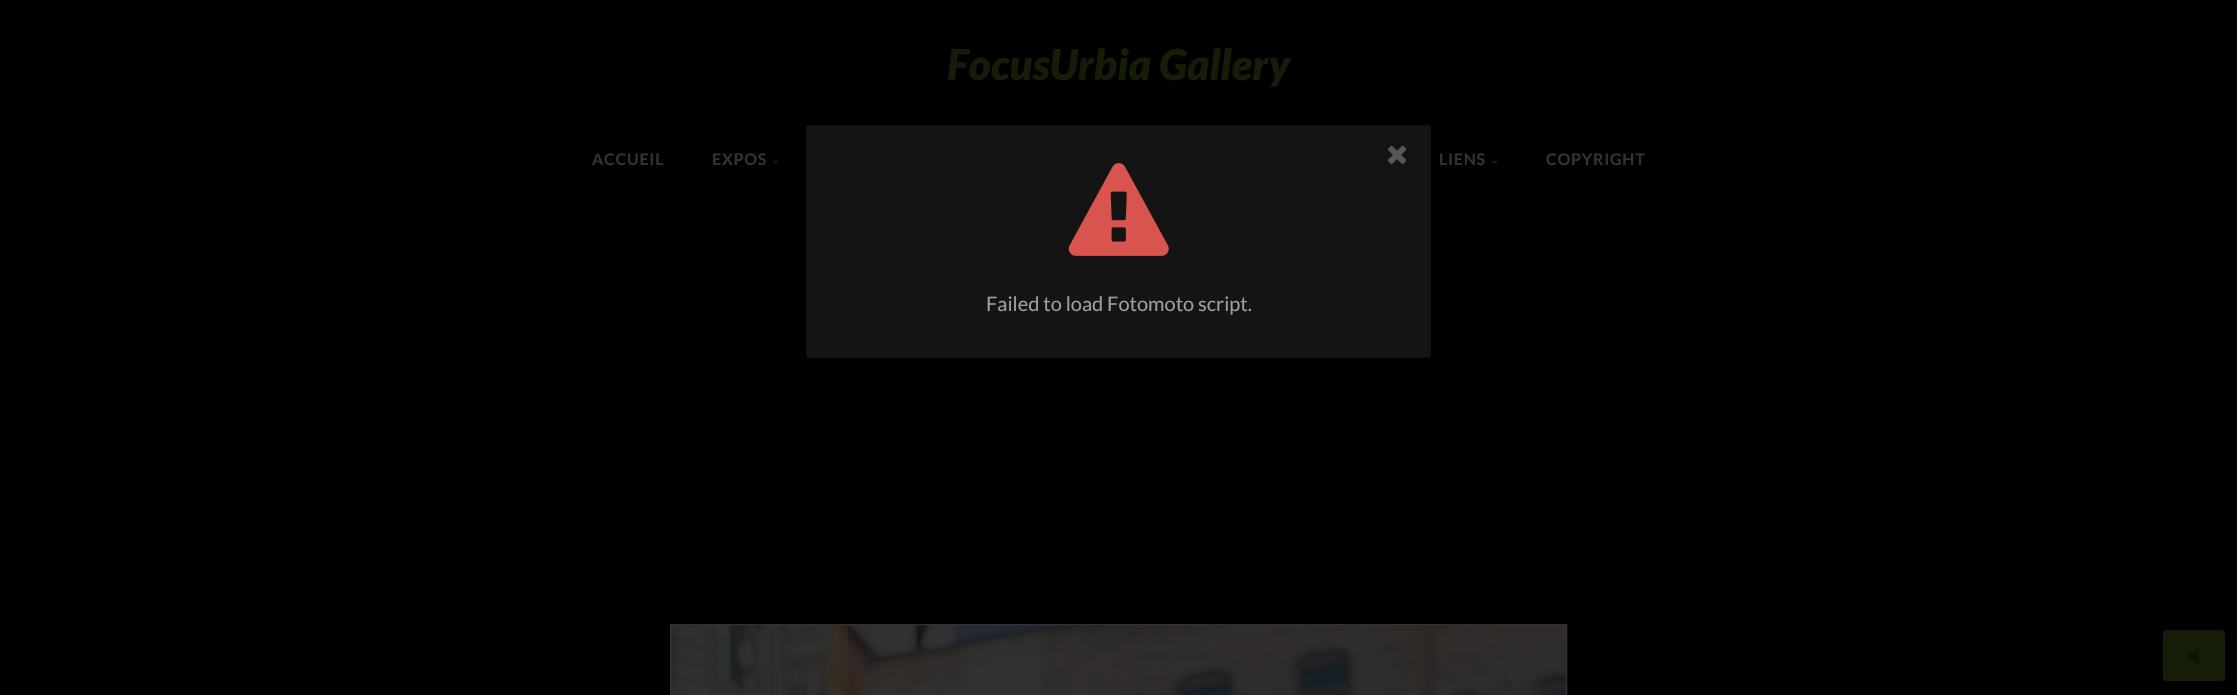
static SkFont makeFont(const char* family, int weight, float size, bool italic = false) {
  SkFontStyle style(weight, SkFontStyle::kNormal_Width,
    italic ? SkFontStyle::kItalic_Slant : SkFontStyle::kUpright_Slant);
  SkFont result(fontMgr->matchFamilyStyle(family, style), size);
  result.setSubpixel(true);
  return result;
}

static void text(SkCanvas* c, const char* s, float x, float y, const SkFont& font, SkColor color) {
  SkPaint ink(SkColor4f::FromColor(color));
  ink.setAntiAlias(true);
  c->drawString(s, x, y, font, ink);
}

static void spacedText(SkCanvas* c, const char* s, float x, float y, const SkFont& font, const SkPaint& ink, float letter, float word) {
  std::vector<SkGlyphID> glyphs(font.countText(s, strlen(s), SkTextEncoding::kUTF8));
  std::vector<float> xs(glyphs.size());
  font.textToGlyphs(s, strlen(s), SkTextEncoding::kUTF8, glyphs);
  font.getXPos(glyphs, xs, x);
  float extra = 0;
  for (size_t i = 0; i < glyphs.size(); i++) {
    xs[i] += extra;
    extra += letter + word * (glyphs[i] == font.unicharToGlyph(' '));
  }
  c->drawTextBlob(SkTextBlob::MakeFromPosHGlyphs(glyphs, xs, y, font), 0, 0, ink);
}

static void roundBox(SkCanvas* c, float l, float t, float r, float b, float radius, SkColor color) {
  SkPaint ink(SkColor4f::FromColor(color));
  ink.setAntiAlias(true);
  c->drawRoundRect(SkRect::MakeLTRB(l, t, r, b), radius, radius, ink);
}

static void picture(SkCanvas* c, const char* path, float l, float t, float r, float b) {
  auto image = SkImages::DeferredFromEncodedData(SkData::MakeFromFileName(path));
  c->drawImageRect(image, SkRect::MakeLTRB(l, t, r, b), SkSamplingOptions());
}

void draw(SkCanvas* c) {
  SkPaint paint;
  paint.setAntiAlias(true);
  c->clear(0xff000000);
  SkFont face1 = makeFont("Lato", 900, 42.5f, true);
  text(c, "FocusUrbia Gallery", 947, 80, face1, 0xff151c07);
  SkFont face2 = makeFont("Lato", 700, 16);
  paint.setColor(0xff333333);
  spacedText(c, "ACCUEIL", 592, 165, face2, paint, 0.75f, 0);
  spacedText(c, "EXPOS", 712, 165, face2, paint, 0.75f, 0);
  picture(c, "img_01.png", 773, 160, 779, 164);
  spacedText(c, "LIENS", 1439, 165, face2, paint, 0.75f, 0);
  picture(c, "img_02.png", 1491, 160, 1497, 164);
  spacedText(c, "COPYRIGHT", 1546, 165, face2, paint, 0.75f, 0);
  picture(c, "img_03.png", 670, 623, 1568, 695);
  roundBox(c, 806, 125, 1431, 358, 4, 0xff141414);
  picture(c, "img_04.png", 1388, 145, 1407, 164);
  picture(c, "img_05.png", 1068, 163, 1169, 256);
  SkFont face3 = makeFont("Lato", 400, 20);
  text(c, "Failed to load Fotomoto script.", 986, 311, face3, 0xff9f9f9f);
  roundBox(c, 2163, 630, 2225, 681, 4, 0xff151c07);
  picture(c, "img_06.png", 2188, 648, 2199, 665);
}
